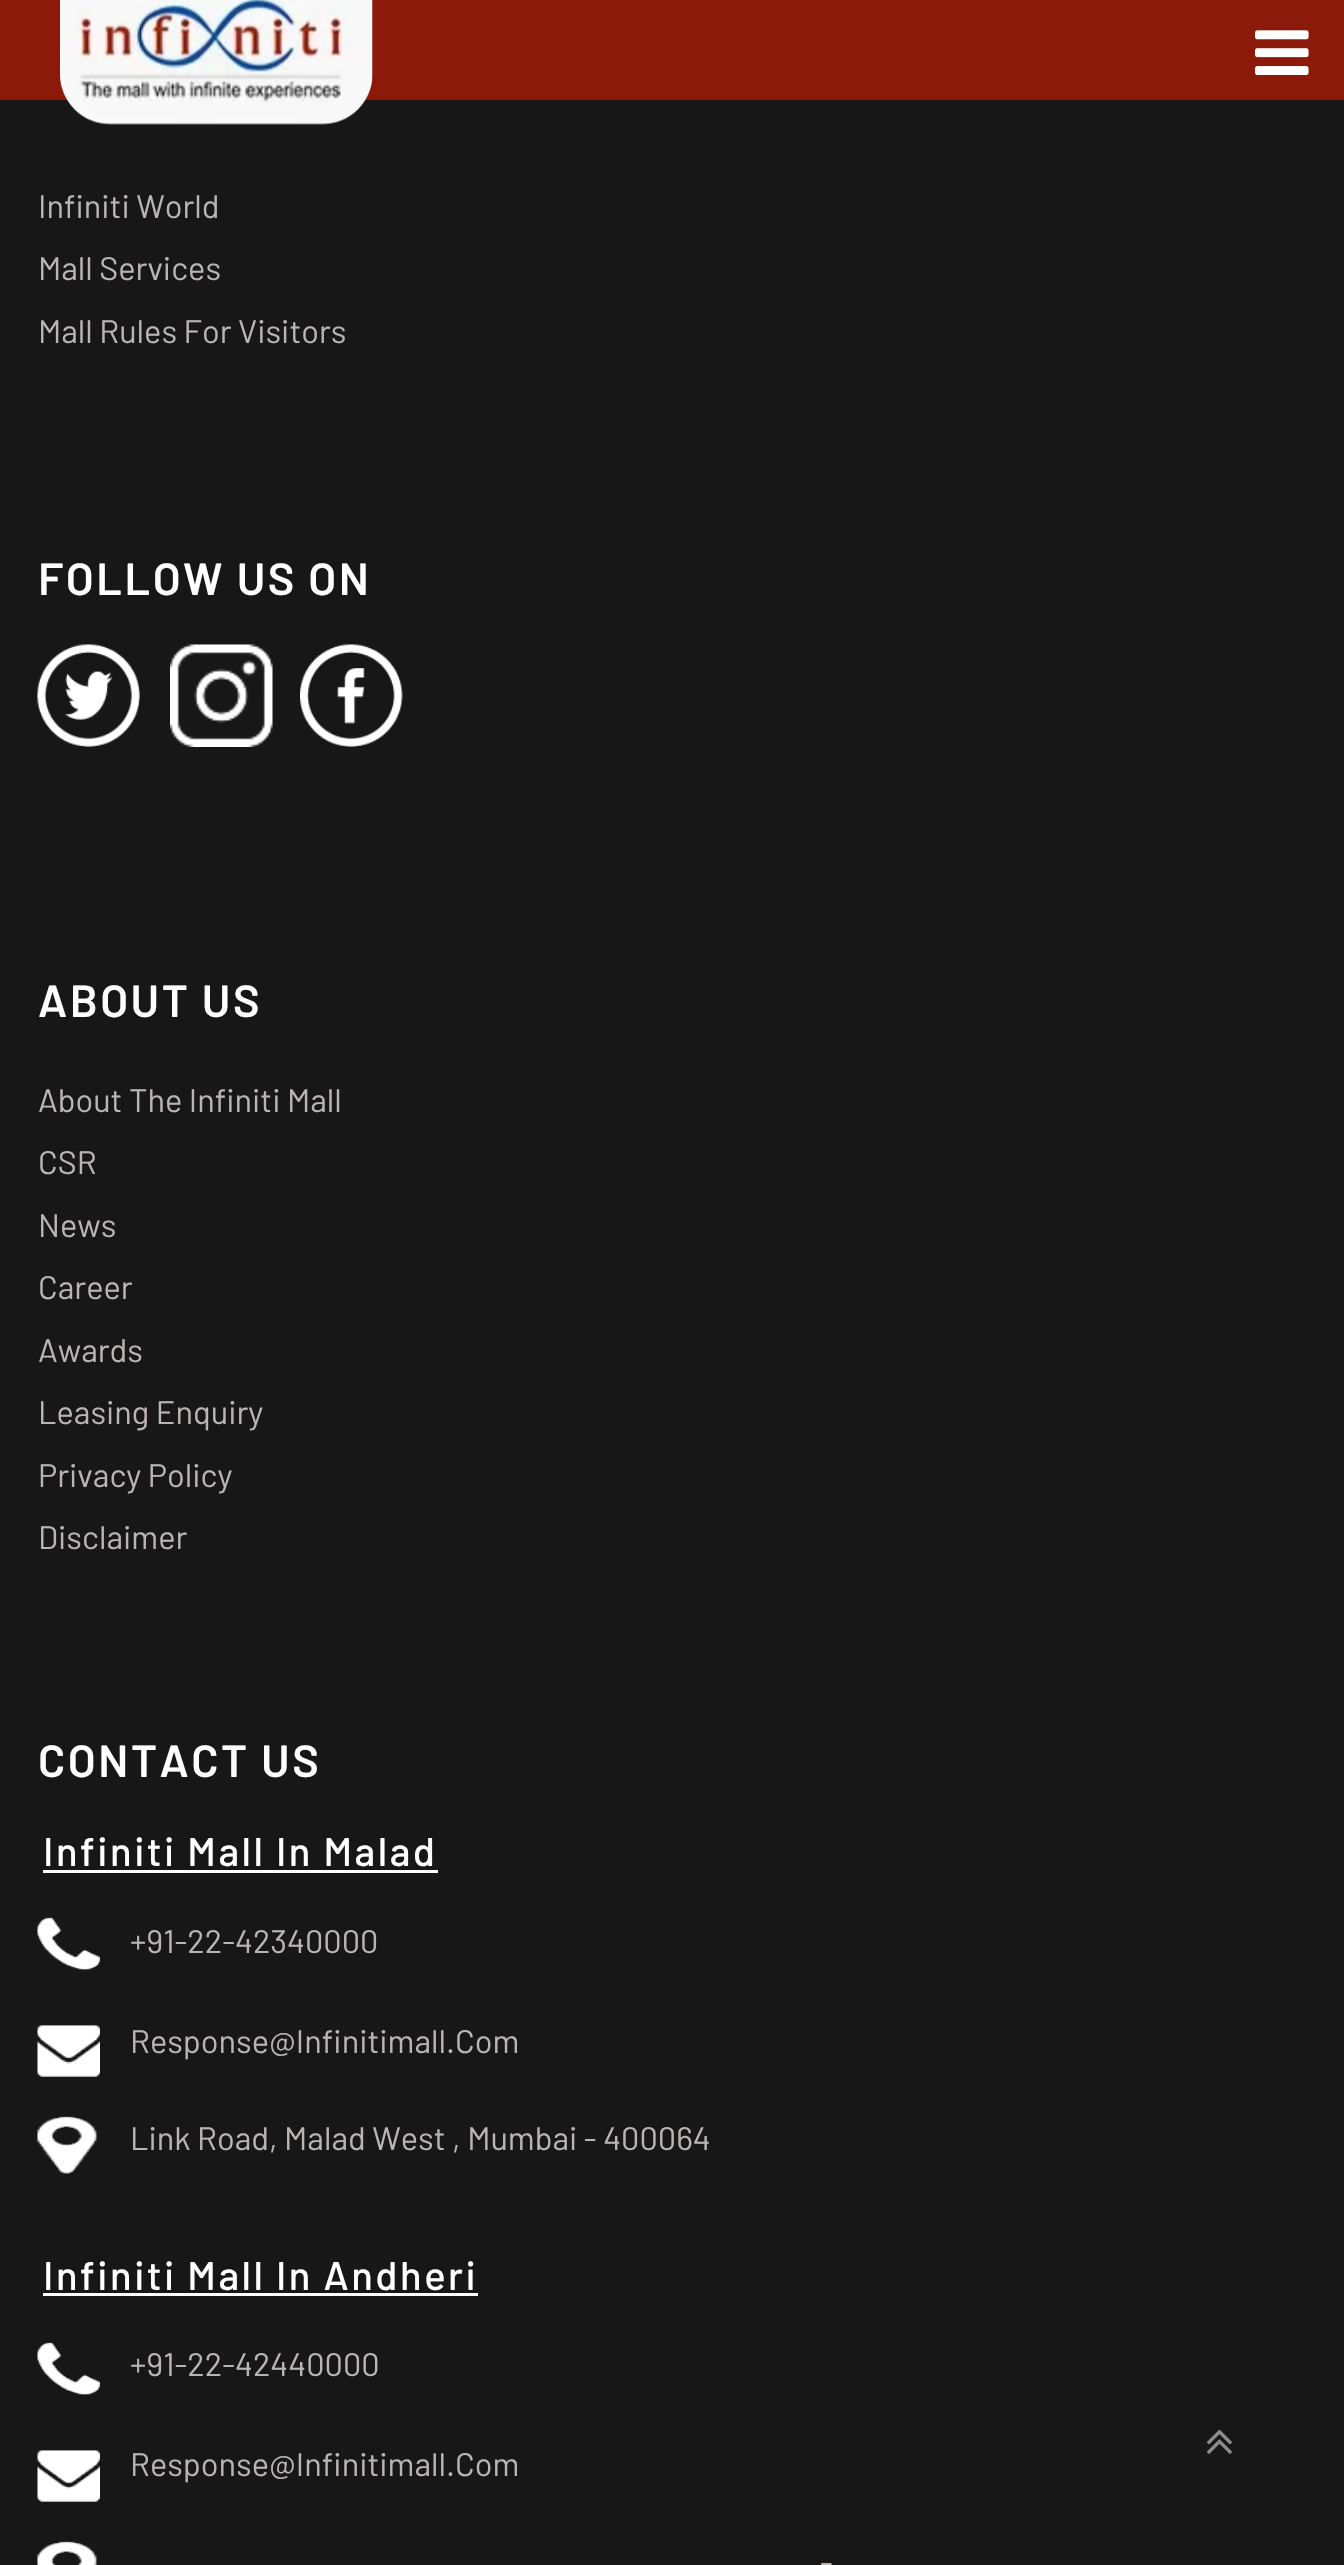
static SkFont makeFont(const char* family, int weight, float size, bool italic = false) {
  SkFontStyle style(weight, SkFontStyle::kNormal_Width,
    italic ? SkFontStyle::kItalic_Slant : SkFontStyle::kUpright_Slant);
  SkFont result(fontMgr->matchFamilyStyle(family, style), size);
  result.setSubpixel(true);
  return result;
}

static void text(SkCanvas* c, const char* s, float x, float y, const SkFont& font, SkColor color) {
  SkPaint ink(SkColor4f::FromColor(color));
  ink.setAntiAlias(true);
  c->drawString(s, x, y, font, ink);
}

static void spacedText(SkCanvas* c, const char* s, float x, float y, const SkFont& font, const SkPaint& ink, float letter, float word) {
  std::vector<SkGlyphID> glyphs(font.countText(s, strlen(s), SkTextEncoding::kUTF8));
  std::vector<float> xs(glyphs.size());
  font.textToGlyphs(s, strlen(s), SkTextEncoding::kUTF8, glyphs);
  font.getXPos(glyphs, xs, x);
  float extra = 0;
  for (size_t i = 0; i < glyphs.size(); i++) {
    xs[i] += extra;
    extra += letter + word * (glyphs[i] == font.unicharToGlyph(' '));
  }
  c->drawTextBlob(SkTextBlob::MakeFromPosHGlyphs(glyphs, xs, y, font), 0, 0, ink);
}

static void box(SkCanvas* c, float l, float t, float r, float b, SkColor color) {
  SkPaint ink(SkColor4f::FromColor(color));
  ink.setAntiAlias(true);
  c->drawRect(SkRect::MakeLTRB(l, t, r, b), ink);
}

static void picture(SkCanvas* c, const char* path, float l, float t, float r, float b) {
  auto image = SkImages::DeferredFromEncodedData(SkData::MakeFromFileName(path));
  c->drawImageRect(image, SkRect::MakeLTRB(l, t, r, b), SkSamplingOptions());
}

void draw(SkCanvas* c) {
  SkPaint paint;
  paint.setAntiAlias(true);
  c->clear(0xff171717);
  box(c, 0, 0, 1344, 100, 0xff8b1a0a);
  picture(c, "img_01.png", 60, 0, 373, 125);
  picture(c, "img_02.png", 1255, 30, 1309, 75);
  SkFont face1 = makeFont("Barlow", 400, 32.5f);
  text(c, "Infiniti World", 38, 218, face1, 0xffbab5b5);
  text(c, "Mall Services", 38, 280, face1, 0xffbab5b5);
  text(c, "Mall Rules For Visitors", 38, 343, face1, 0xffbab5b5);
  SkFont face2 = makeFont("Barlow", 600, 45);
  paint.setColor(0xffffffff);
  spacedText(c, "FOLLOW US ON", 38, 595, face2, paint, 2.5f, 0);
  picture(c, "img_03.png", 37, 644, 140, 747);
  picture(c, "img_04.png", 170, 644, 273, 747);
  picture(c, "img_05.png", 300, 644, 403, 747);
  spacedText(c, "ABOUT US", 38, 1017, face2, paint, 2.5f, 0);
  text(c, "About The Infiniti Mall", 38, 1112, face1, 0xffbab5b5);
  text(c, "CSR", 38, 1174, face1, 0xffbab5b5);
  text(c, "News", 38, 1237, face1, 0xffbab5b5);
  text(c, "Career", 38, 1299, face1, 0xffbab5b5);
  text(c, "Awards", 38, 1362, face1, 0xffbab5b5);
  text(c, "Leasing Enquiry", 38, 1424, face1, 0xffbab5b5);
  text(c, "Privacy Policy", 38, 1487, face1, 0xffbab5b5);
  text(c, "Disclaimer", 38, 1549, face1, 0xffbab5b5);
  spacedText(c, "CONTACT US", 38, 1777, face2, paint, 2.5f, 0);
  SkFont face3 = makeFont("Barlow", 500, 40);
  spacedText(c, "Infiniti Mall In Malad", 43, 1866, face3, paint, 2.5f, 0);
  box(c, 43, 1870, 438, 1873, 0xffffffff);
  picture(c, "img_06.png", 37, 1917, 100, 1970);
  text(c, "+91-22-42340000", 130, 1953, face1, 0xffbab5b5);
  picture(c, "img_07.png", 37, 2025, 100, 2077);
  text(c, "Response@Infinitimall.Com", 130, 2053, face1, 0xffbab5b5);
  picture(c, "img_08.png", 37, 2116, 97, 2174);
  text(c, "Link Road, Malad West , Mumbai - 400064", 130, 2150, face1, 0xffbab5b5);
  spacedText(c, "Infiniti Mall In Andheri", 43, 2290, face3, paint, 2.5f, 0);
  box(c, 43, 2293, 478, 2296, 0xffffffff);
  picture(c, "img_06.png", 37, 2342, 100, 2395);
  text(c, "+91-22-42440000", 130, 2376, face1, 0xffbab5b5);
  picture(c, "img_07.png", 37, 2450, 100, 2502);
  text(c, "Response@Infinitimall.Com", 130, 2476, face1, 0xffbab5b5);
  picture(c, "img_09.png", 37, 2541, 97, 2565);
  text(c, "-", 820, 2574, face1, 0xffbab5b5);
  picture(c, "img_10.png", 1207, 2429, 1232, 2454);
}
